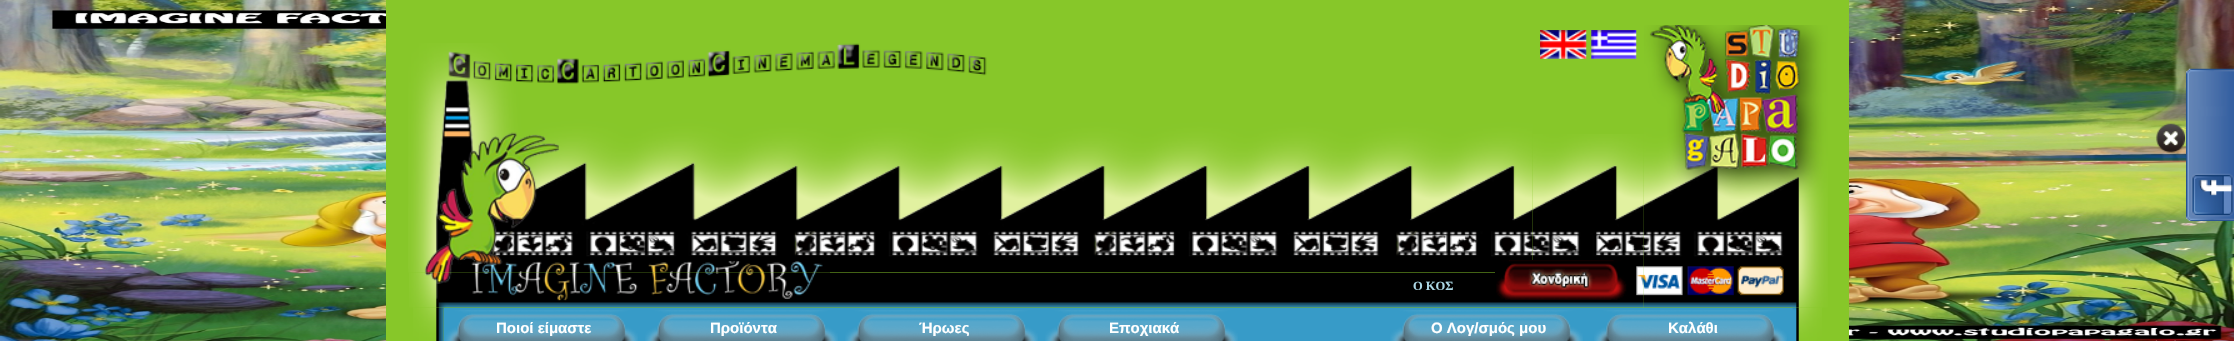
static SkFont makeFont(const char* family, int weight, float size, bool italic = false) {
  SkFontStyle style(weight, SkFontStyle::kNormal_Width,
    italic ? SkFontStyle::kItalic_Slant : SkFontStyle::kUpright_Slant);
  SkFont result(fontMgr->matchFamilyStyle(family, style), size);
  result.setSubpixel(true);
  return result;
}

static void text(SkCanvas* c, const char* s, float x, float y, const SkFont& font, SkColor color) {
  SkPaint ink(SkColor4f::FromColor(color));
  ink.setAntiAlias(true);
  c->drawString(s, x, y, font, ink);
}

static void box(SkCanvas* c, float l, float t, float r, float b, SkColor color) {
  SkPaint ink(SkColor4f::FromColor(color));
  ink.setAntiAlias(true);
  c->drawRect(SkRect::MakeLTRB(l, t, r, b), ink);
}

static void picture(SkCanvas* c, const char* path, float l, float t, float r, float b) {
  auto image = SkImages::DeferredFromEncodedData(SkData::MakeFromFileName(path));
  c->drawImageRect(image, SkRect::MakeLTRB(l, t, r, b), SkSamplingOptions());
}

void draw(SkCanvas* c) {
  SkPaint paint;
  paint.setAntiAlias(true);
  c->clear(0xffffffff);
  picture(c, "img_01.png", 0, 0, 2234, 341);
  picture(c, "img_02.png", 2156, 123, 2185, 153);
  picture(c, "img_03.png", 2186, 68, 2234, 221);
  box(c, 386, 0, 1849, 341, 0xff87c729);
  picture(c, "img_04.png", 408, 43, 1533, 260);
  picture(c, "img_05.png", 1540, 30, 1587, 59);
  picture(c, "img_06.png", 1591, 30, 1637, 59);
  picture(c, "img_07.png", 1643, 25, 1828, 308);
  picture(c, "img_08.png", 1532, 134, 1644, 260);
  picture(c, "img_09.png", 408, 260, 1495, 273);
  box(c, 1495, 260, 1630, 300, 0xff000000);
  picture(c, "img_10.png", 1496, 260, 1627, 300);
  picture(c, "img_11.png", 1630, 260, 1644, 308);
  picture(c, "img_12.png", 409, 272, 830, 308);
  box(c, 830, 273, 1495, 300, 0xff000000);
  SkFont face1 = makeFont("Liberation Serif", 700, 12.5f);
  text(c, "Ο ΚΟΣ", 1413, 290, face1, 0xffadd8e6);
  picture(c, "img_13.png", 830, 300, 1630, 308);
  picture(c, "img_14.png", 413, 307, 444, 341);
  box(c, 444, 308, 1793, 341, 0xff379bc8);
  picture(c, "img_15.png", 445, 310, 638, 341);
  SkFont face2 = makeFont("Liberation Sans", 700, 15);
  text(c, "Ποιοί είμαστε", 496, 333, face2, 0xffffffff);
  picture(c, "img_16.png", 645, 310, 838, 341);
  text(c, "Προϊόντα", 710, 333, face2, 0xffffffff);
  picture(c, "img_17.png", 845, 310, 1038, 341);
  text(c, "Ήρωες", 919, 333, face2, 0xffffffff);
  picture(c, "img_18.png", 1045, 310, 1238, 341);
  text(c, "Εποχιακά", 1109, 333, face2, 0xffffffff);
  picture(c, "img_19.png", 1390, 310, 1583, 341);
  text(c, "Ο Λογ/σμός μου", 1431, 333, face2, 0xffffffff);
  picture(c, "img_20.png", 1594, 310, 1787, 341);
  text(c, "Καλάθι", 1668, 333, face2, 0xffffffff);
  picture(c, "img_21.png", 1792, 307, 1822, 341);
}
